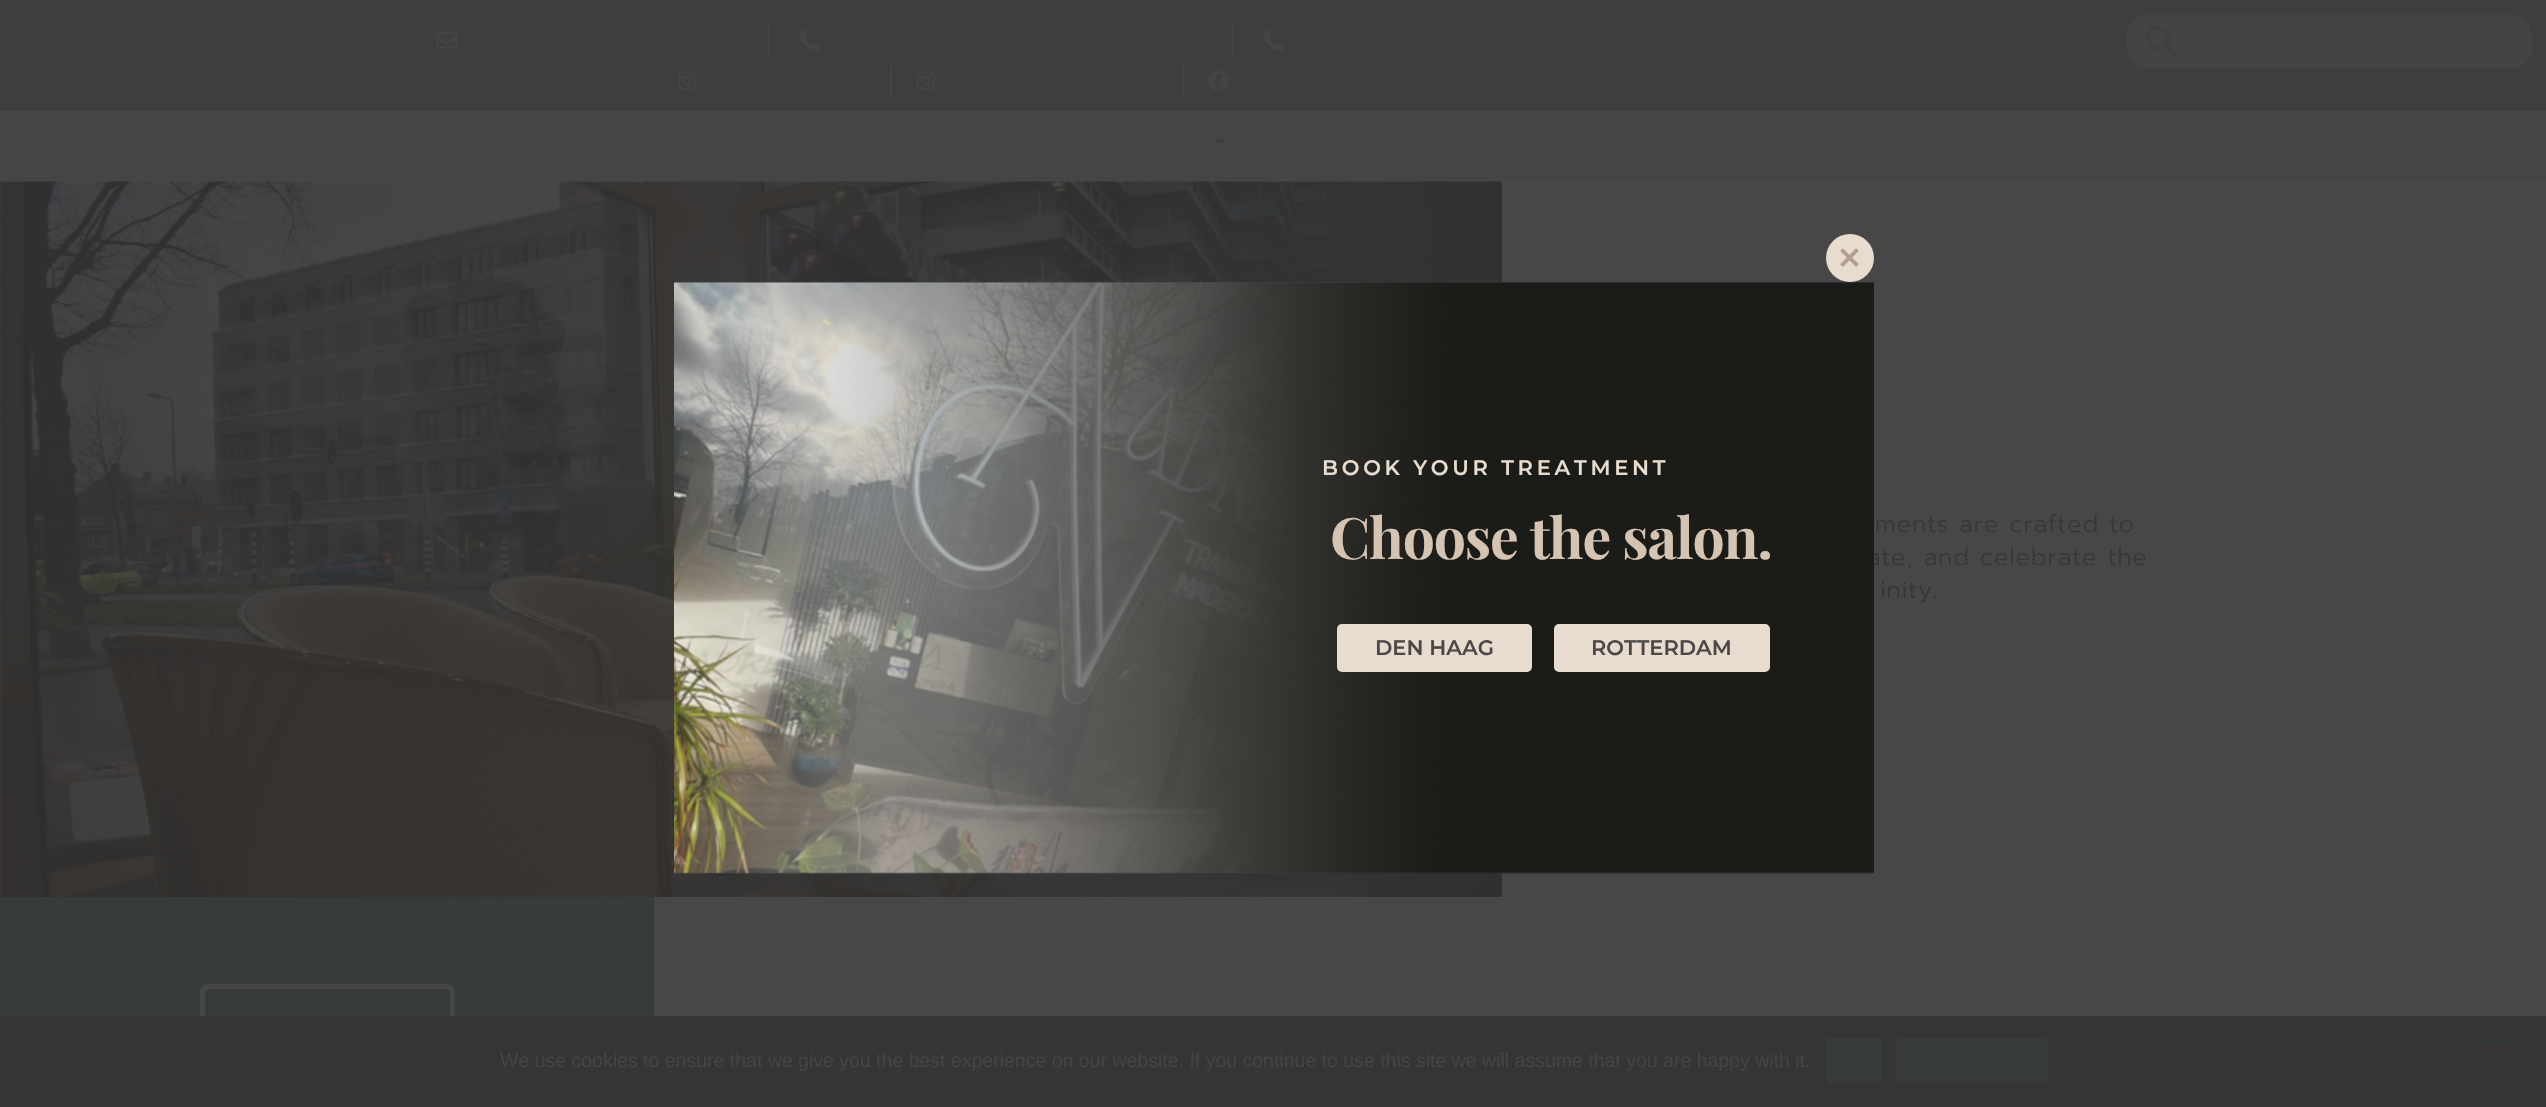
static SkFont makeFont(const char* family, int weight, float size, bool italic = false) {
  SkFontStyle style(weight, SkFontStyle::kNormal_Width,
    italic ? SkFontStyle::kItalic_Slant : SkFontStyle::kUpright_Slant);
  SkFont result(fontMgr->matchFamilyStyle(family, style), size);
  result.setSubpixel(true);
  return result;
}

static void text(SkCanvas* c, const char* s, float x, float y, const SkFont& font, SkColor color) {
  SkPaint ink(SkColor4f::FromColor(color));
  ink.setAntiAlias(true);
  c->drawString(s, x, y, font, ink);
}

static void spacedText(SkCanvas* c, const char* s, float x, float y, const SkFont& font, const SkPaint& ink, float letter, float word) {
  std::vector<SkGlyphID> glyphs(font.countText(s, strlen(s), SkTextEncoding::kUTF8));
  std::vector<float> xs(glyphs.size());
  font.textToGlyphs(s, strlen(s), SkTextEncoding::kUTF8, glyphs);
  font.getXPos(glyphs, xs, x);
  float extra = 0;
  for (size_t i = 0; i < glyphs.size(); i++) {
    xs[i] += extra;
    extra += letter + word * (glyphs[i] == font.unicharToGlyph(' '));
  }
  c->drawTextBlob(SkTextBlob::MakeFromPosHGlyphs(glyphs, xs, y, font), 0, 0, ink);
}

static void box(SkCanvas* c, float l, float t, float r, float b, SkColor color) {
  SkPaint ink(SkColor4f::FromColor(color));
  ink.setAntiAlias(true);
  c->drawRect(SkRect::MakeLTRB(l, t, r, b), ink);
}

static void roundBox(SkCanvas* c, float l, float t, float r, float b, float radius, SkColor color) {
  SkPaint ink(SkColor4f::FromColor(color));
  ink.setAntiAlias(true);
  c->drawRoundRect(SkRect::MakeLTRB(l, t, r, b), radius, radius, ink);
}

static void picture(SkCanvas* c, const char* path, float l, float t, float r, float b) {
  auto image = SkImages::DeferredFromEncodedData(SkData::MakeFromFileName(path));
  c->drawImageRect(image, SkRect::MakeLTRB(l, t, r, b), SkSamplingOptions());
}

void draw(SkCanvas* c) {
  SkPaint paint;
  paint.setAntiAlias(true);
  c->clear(0xff474747);
  box(c, 0, 111, 2546, 180, 0xff464543);
  box(c, 0, 0, 2546, 111, 0xff403e3c);
  picture(c, "img_01.png", 436, 32, 458, 48);
  box(c, 768, 24, 770, 57, 0xff454443);
  picture(c, "img_02.png", 799, 29, 821, 51);
  box(c, 1232, 24, 1234, 57, 0xff454443);
  picture(c, "img_03.png", 1263, 29, 1284, 51);
  picture(c, "img_04.png", 678, 71, 697, 90);
  box(c, 890, 66, 892, 96, 0xff454443);
  picture(c, "img_05.png", 916, 71, 935, 90);
  box(c, 1182, 66, 1184, 96, 0xff454443);
  picture(c, "img_06.png", 1207, 70, 1229, 91);
  roundBox(c, 2127, 15, 2532, 68, 20, 0xff454443);
  picture(c, "img_07.png", 2145, 25, 2177, 57);
  picture(c, "img_08.png", 1214, 139, 1225, 146);
  picture(c, "img_11.png", 0, 181, 1502, 897);
  SkFont face1 = makeFont("Prompt", 300, 24);
  paint.setColor(0xff373737);
  spacedText(c, "ate, and celebrate the", 1867, 565, face1, paint, 0.9f, 0);
  box(c, 674, 282, 1874, 873, 0xff38454e);
  picture(c, "img_09.png", 674, 282, 1874, 874);
  paint.setColor(0xffe8dccf);
  c->drawCircle(1850, 258, 24, paint);
  picture(c, "img_10.png", 1840, 248, 1859, 267);
  SkFont face2 = makeFont("Montserrat", 100, 21);
  spacedText(c, "BOOK YOUR TREATMENT", 1322, 475, face2, paint, 3.75f, 0);
  SkFont face3 = makeFont("Playfair Display", 700, 57);
  paint.setColor(0xffd6c4b2);
  spacedText(c, "Choose the salon.", 1330, 559, face3, paint, -1.1f, 0);
  box(c, 1367, 632, 1502, 664, 0xffe8dccf);
  paint.setStyle(SkPaint::kStroke_Style);
  paint.setStrokeWidth(8);
  paint.setColor(0xffe8dccf);
  c->drawRoundRect(SkRect::MakeLTRB(1341, 628, 1528, 668), 1, 1, paint);
  box(c, 1502, 632, 1524, 664, 0xffe8dccf);
  box(c, 1345, 632, 1367, 664, 0xffe8dccf);
  text(c, "DEN HAAG", 1375, 655, face2, 0xff4b4848);
  box(c, 1584, 632, 1740, 664, 0xffe8dccf);
  c->drawRoundRect(SkRect::MakeLTRB(1558, 628, 1766, 668), 1, 1, paint);
  box(c, 1740, 632, 1762, 664, 0xffe8dccf);
  box(c, 1562, 632, 1584, 664, 0xffe8dccf);
  text(c, "ROTTERDAM", 1591, 655, face2, 0xff4b4848);
  paint.setStyle(SkPaint::kFill_Style);
  paint.setColor(0xff373737);
  spacedText(c, "ments are crafted to", 1875, 532, face1, paint, 0.9f, 0);
  spacedText(c, "inity.", 1880, 598, face1, paint, 0.9f, 0);
  box(c, 0, 897, 654, 1016, 0xff383c39);
  paint.setStyle(SkPaint::kStroke_Style);
  paint.setStrokeWidth(5);
  paint.setColor(0xff474747);
  c->drawRoundRect(SkRect::MakeLTRB(202.5f, 986.5f, 452.5f, 1074.5f), 5.5f, 5.5f, paint);
  box(c, 0, 1016, 2546, 1107, 0xff353535);
  SkFont face4 = makeFont("Liberation Sans", 400, 19.5f);
  text(c, "We use cookies to ensure that we give you the best experience on our website. If you continue to use this site we will assume that you are happy with it.", 500, 1067, face4, 0xff454443);
  roundBox(c, 1826, 1038, 1881, 1083, 5, 0xff383c39);
  roundBox(c, 1896, 1038, 2048, 1083, 5, 0xff383c39);
  paint.setStrokeWidth(2);
  paint.setColor(0xff3c3437);
  c->drawRoundRect(SkRect::MakeLTRB(2475, 1047, 2524, 1072), 4, 4, paint);
  paint.setStyle(SkPaint::kFill_Style);
  paint.setColor(0xff383838);
  c->drawPath(SkPathBuilder().moveTo(2507.5f, 1054).lineTo(2509.5f, 1056).lineTo(2493.5f, 1072).lineTo(2491.5f, 1070).close().detach(), paint);
  c->drawPath(SkPathBuilder().moveTo(2491.5f, 1056).lineTo(2493.5f, 1054).lineTo(2509.5f, 1070).lineTo(2507.5f, 1072).close().detach(), paint);
}
